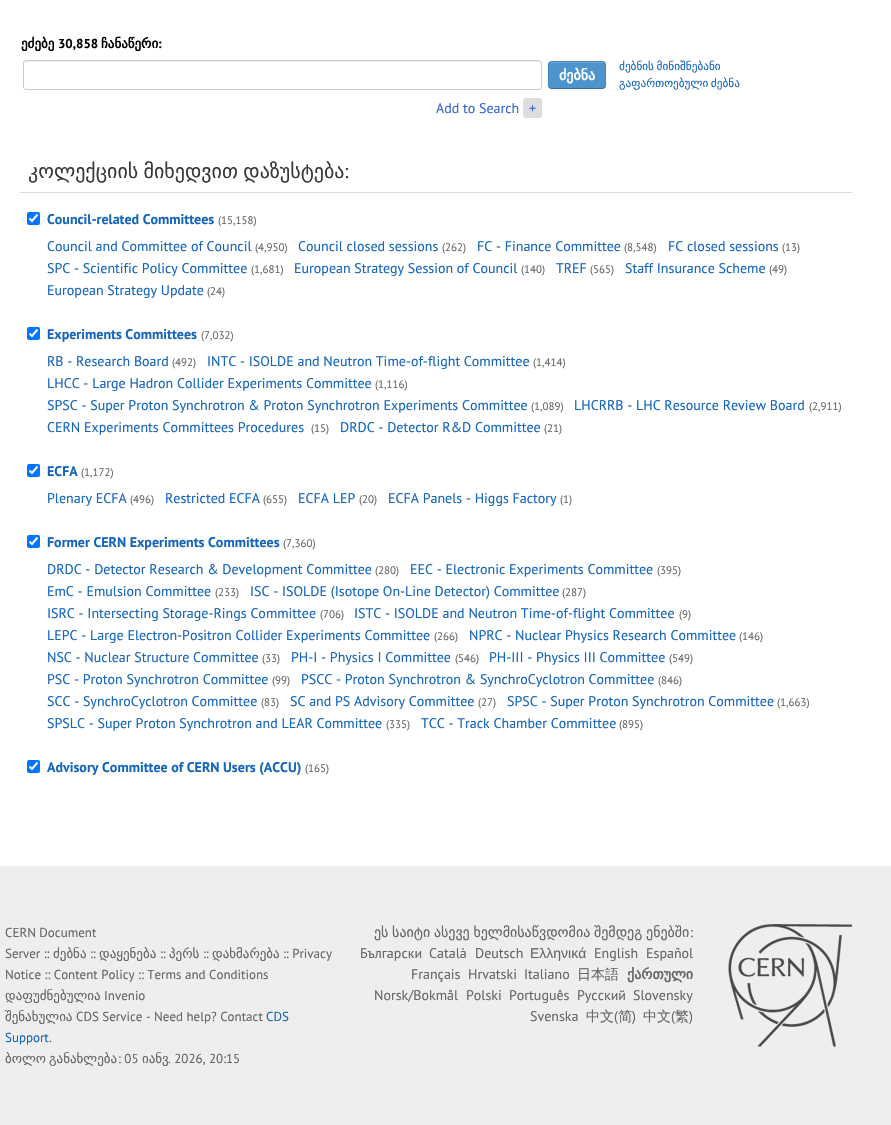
static SkFont makeFont(const char* family, int weight, float size, bool italic = false) {
  SkFontStyle style(weight, SkFontStyle::kNormal_Width,
    italic ? SkFontStyle::kItalic_Slant : SkFontStyle::kUpright_Slant);
  SkFont result(fontMgr->matchFamilyStyle(family, style), size);
  result.setSubpixel(true);
  return result;
}

static void text(SkCanvas* c, const char* s, float x, float y, const SkFont& font, SkColor color) {
  SkPaint ink(SkColor4f::FromColor(color));
  ink.setAntiAlias(true);
  c->drawString(s, x, y, font, ink);
}

static void spacedText(SkCanvas* c, const char* s, float x, float y, const SkFont& font, const SkPaint& ink, float letter, float word) {
  std::vector<SkGlyphID> glyphs(font.countText(s, strlen(s), SkTextEncoding::kUTF8));
  std::vector<float> xs(glyphs.size());
  font.textToGlyphs(s, strlen(s), SkTextEncoding::kUTF8, glyphs);
  font.getXPos(glyphs, xs, x);
  float extra = 0;
  for (size_t i = 0; i < glyphs.size(); i++) {
    xs[i] += extra;
    extra += letter + word * (glyphs[i] == font.unicharToGlyph(' '));
  }
  c->drawTextBlob(SkTextBlob::MakeFromPosHGlyphs(glyphs, xs, y, font), 0, 0, ink);
}

static void box(SkCanvas* c, float l, float t, float r, float b, SkColor color) {
  SkPaint ink(SkColor4f::FromColor(color));
  ink.setAntiAlias(true);
  c->drawRect(SkRect::MakeLTRB(l, t, r, b), ink);
}

static void roundBox(SkCanvas* c, float l, float t, float r, float b, float radius, SkColor color) {
  SkPaint ink(SkColor4f::FromColor(color));
  ink.setAntiAlias(true);
  c->drawRoundRect(SkRect::MakeLTRB(l, t, r, b), radius, radius, ink);
}

static void picture(SkCanvas* c, const char* path, float l, float t, float r, float b) {
  auto image = SkImages::DeferredFromEncodedData(SkData::MakeFromFileName(path));
  c->drawImageRect(image, SkRect::MakeLTRB(l, t, r, b), SkSamplingOptions());
}

void draw(SkCanvas* c) {
  SkPaint paint;
  paint.setAntiAlias(true);
  c->clear(0xffffffff);
  SkFont face1 = makeFont("DejaVu Sans", 700, 13);
  text(c, "ეძებე", 21, 48, face1, 0xff000000);
  SkFont face2 = makeFont("PT Sans", 700, 13);
  text(c, "30,858", 58, 48, face2, 0xff000000);
  text(c, "ჩანაწერი", 101, 48, face1, 0xff000000);
  text(c, ":", 158, 48, face2, 0xff000000);
  paint.setColor(0xffececec);
  c->drawPath(SkPathBuilder().moveTo(26, 62).lineTo(539, 62).cubicTo(540, 62, 541, 63, 541, 64).cubicTo(541, 63, 541, 61, 539, 61).lineTo(26, 61).lineTo(24, 62).lineTo(24, 64).cubicTo(24, 63, 25, 62, 26, 62).close().detach(), paint);
  paint.setStyle(SkPaint::kStroke_Style);
  paint.setStrokeWidth(1);
  paint.setColor(0xffcccccc);
  c->drawRoundRect(SkRect::MakeLTRB(23.5f, 60.5f, 541.5f, 89.5f), 2.5f, 2.5f, paint);
  paint.setStyle(SkPaint::kFill_Style);
  paint.setColor(0x0d000000);
  paint.setMaskFilter(SkMaskFilter::MakeBlur(kNormal_SkBlurStyle, 1));
  c->drawRoundRect(SkRect::MakeLTRB(548, 62, 606, 90), 4, 4, paint);
  paint.setMaskFilter(nullptr);
  roundBox(c, 548, 61, 606, 89, 4, 0xff4d94cc);
  paint.setColor(0xff71a9d6);
  c->drawPath(SkPathBuilder().moveTo(552, 63).lineTo(602, 63).cubicTo(604, 63, 605, 64, 605, 66).cubicTo(605, 60, 598, 62, 594, 62).lineTo(560, 62).cubicTo(556, 62, 549, 60, 549, 66).cubicTo(549, 64, 550, 63, 552, 63).close().detach(), paint);
  paint.setStyle(SkPaint::kStroke_Style);
  paint.setColor(0x40000000);
  c->drawPath(SkPathBuilder().moveTo(604.5f, 87.5f).lineTo(602.5f, 88.5f).lineTo(551.5f, 88.5f).lineTo(549.5f, 87.5f).detach(), paint);
  paint.setColor(0x1a000000);
  c->drawPath(SkPathBuilder().moveTo(549.5f, 87.5f).cubicTo(547.5f, 85, 548.5f, 77.5f, 548.5f, 75).cubicTo(548.5f, 61, 546, 61.5f, 560.5f, 61.5f).lineTo(593.5f, 61.5f).cubicTo(608, 61.5f, 605.5f, 61, 605.5f, 75).cubicTo(605.5f, 77.5f, 606.5f, 85, 604.5f, 87.5f).detach(), paint);
  SkFont face3 = makeFont("DejaVu Sans", 700, 14);
  text(c, "ძებნა", 559, 80, face3, 0xffffffff);
  SkFont face4 = makeFont("DejaVu Sans", 400, 11.25f);
  paint.setStyle(SkPaint::kFill_Style);
  paint.setColor(0xff1565ba);
  spacedText(c, "ძებნის მინიშნებანი", 619, 70, face4, paint, 0, -1);
  spacedText(c, "გაფართოებული ძებნა", 619, 87, face4, paint, 0, -1);
  SkFont face5 = makeFont("PT Sans", 400, 14);
  text(c, "Add to Search", 436, 113, face5, 0xff3366cc);
  roundBox(c, 523, 98, 542, 118, 3, 0xffdddddd);
  text(c, "+", 529, 113, face5, 0xff3366cc);
  box(c, 20, 192, 852, 193, 0xffdddddd);
  SkFont face6 = makeFont("DejaVu Sans", 400, 20);
  paint.setColor(0xff383838);
  spacedText(c, "კოლექციის მიხედვით დაზუსტება", 28, 178, face6, paint, 0, -1);
  SkFont face7 = makeFont("PT Sans", 400, 20);
  text(c, ":", 344, 178, face7, 0xff383838);
  roundBox(c, 27, 212, 40, 225, 2, 0xff0075ff);
  paint.setStyle(SkPaint::kStroke_Style);
  paint.setStrokeWidth(2.1f);
  paint.setColor(0xffffffff);
  c->drawPath(SkPathBuilder().moveTo(29.5f, 218.5f).lineTo(32, 221).lineTo(37.5f, 214.5f).detach(), paint);
  SkFont face8 = makeFont("PT Sans", 700, 14);
  text(c, "Council-related Committees", 47, 224, face8, 0xff1565ba);
  SkFont face9 = makeFont("PT Sans", 400, 11);
  text(c, "(15,158)", 218, 224, face9, 0xff666666);
  text(c, "Council and Committee of Council", 47, 251, face5, 0xff1565ba);
  text(c, "(4,950)", 255, 251, face9, 0xff666666);
  text(c, "Council closed sessions", 298, 251, face5, 0xff1565ba);
  text(c, "(262)", 442, 251, face9, 0xff666666);
  text(c, "FC - Finance Committee", 477, 251, face5, 0xff1565ba);
  text(c, "(8,548)", 624, 251, face9, 0xff666666);
  text(c, "FC closed sessions", 668, 251, face5, 0xff1565ba);
  text(c, "(13)", 782, 251, face9, 0xff666666);
  text(c, "SPC - Scientific Policy Committee", 47, 273, face5, 0xff1565ba);
  text(c, "(1,681)", 251, 273, face9, 0xff666666);
  text(c, "European Strategy Session of Council", 294, 273, face5, 0xff1565ba);
  text(c, "(140)", 521, 273, face9, 0xff666666);
  text(c, "TREF", 556, 273, face5, 0xff1565ba);
  text(c, "(565)", 590, 273, face9, 0xff666666);
  text(c, "Staff Insurance Scheme", 625, 273, face5, 0xff1565ba);
  text(c, "(49)", 769, 273, face9, 0xff666666);
  text(c, "European Strategy Update", 47, 295, face5, 0xff1565ba);
  text(c, "(24)", 207, 295, face9, 0xff666666);
  roundBox(c, 27, 327, 40, 340, 2, 0xff0075ff);
  c->drawPath(SkPathBuilder().moveTo(29.5f, 333.5f).lineTo(32, 336).lineTo(37.5f, 329.5f).detach(), paint);
  text(c, "Experiments Committees", 47, 339, face8, 0xff1565ba);
  text(c, "(7,032)", 201, 339, face9, 0xff666666);
  text(c, "RB - Research Board", 47, 366, face5, 0xff1565ba);
  text(c, "(492)", 172, 366, face9, 0xff666666);
  text(c, "INTC - ISOLDE and Neutron Time-of-flight Committee", 207, 366, face5, 0xff1565ba);
  text(c, "(1,414)", 533, 366, face9, 0xff666666);
  text(c, "LHCC - Large Hadron Collider Experiments Committee", 47, 388, face5, 0xff1565ba);
  text(c, "(1,116)", 375, 388, face9, 0xff666666);
  text(c, "SPSC - Super Proton Synchrotron & Proton Synchrotron Experiments Committee", 47, 410, face5, 0xff1565ba);
  text(c, "(1,089)", 531, 410, face9, 0xff666666);
  text(c, "LHCRRB - LHC Resource Review Board", 574, 410, face5, 0xff1565ba);
  text(c, "(2,911)", 809, 410, face9, 0xff666666);
  text(c, "CERN Experiments Committees Procedures", 47, 432, face5, 0xff1565ba);
  text(c, "(15)", 311, 432, face9, 0xff666666);
  text(c, "DRDC - Detector R&D Committee", 340, 432, face5, 0xff1565ba);
  text(c, "(21)", 544, 432, face9, 0xff666666);
  roundBox(c, 27, 464, 40, 477, 2, 0xff0075ff);
  c->drawPath(SkPathBuilder().moveTo(29.5f, 470.5f).lineTo(32, 473).lineTo(37.5f, 466.5f).detach(), paint);
  text(c, "ECFA", 47, 476, face8, 0xff1565ba);
  text(c, "(1,172)", 81, 476, face9, 0xff666666);
  text(c, "Plenary ECFA", 47, 503, face5, 0xff1565ba);
  text(c, "(496)", 130, 503, face9, 0xff666666);
  text(c, "Restricted ECFA", 165, 503, face5, 0xff1565ba);
  text(c, "(655)", 263, 503, face9, 0xff666666);
  text(c, "ECFA LEP", 298, 503, face5, 0xff1565ba);
  text(c, "(20)", 359, 503, face9, 0xff666666);
  text(c, "ECFA Panels - Higgs Factory", 388, 503, face5, 0xff1565ba);
  text(c, "(1)", 560, 503, face9, 0xff666666);
  roundBox(c, 27, 535, 40, 548, 2, 0xff0075ff);
  c->drawPath(SkPathBuilder().moveTo(29.5f, 541.5f).lineTo(32, 544).lineTo(37.5f, 537.5f).detach(), paint);
  text(c, "Former CERN Experiments Committees", 47, 547, face8, 0xff1565ba);
  text(c, "(7,360)", 283, 547, face9, 0xff666666);
  text(c, "DRDC - Detector Research & Development Committee", 47, 574, face5, 0xff1565ba);
  text(c, "(280)", 375, 574, face9, 0xff666666);
  text(c, "EEC - Electronic Experiments Committee", 410, 574, face5, 0xff1565ba);
  text(c, "(395)", 657, 574, face9, 0xff666666);
  text(c, "EmC - Emulsion Committee", 47, 596, face5, 0xff1565ba);
  text(c, "(233)", 215, 596, face9, 0xff666666);
  text(c, "ISC - ISOLDE (Isotope On-Line Detector) Committee", 250, 596, face5, 0xff1565ba);
  text(c, "(287)", 562, 596, face9, 0xff666666);
  text(c, "ISRC - Intersecting Storage-Rings Committee", 47, 618, face5, 0xff1565ba);
  text(c, "(706)", 320, 618, face9, 0xff666666);
  text(c, "ISTC - ISOLDE and Neutron Time-of-flight Committee", 354, 618, face5, 0xff1565ba);
  text(c, "(9)", 679, 618, face9, 0xff666666);
  text(c, "LEPC - Large Electron-Positron Collider Experiments Committee", 47, 640, face5, 0xff1565ba);
  text(c, "(266)", 434, 640, face9, 0xff666666);
  text(c, "NPRC - Nuclear Physics Research Committee", 469, 640, face5, 0xff1565ba);
  text(c, "(146)", 739, 640, face9, 0xff666666);
  text(c, "NSC - Nuclear Structure Committee", 47, 662, face5, 0xff1565ba);
  text(c, "(33)", 262, 662, face9, 0xff666666);
  text(c, "PH-I - Physics I Committee", 291, 662, face5, 0xff1565ba);
  text(c, "(546)", 455, 662, face9, 0xff666666);
  text(c, "PH-III - Physics III Committee", 489, 662, face5, 0xff1565ba);
  text(c, "(549)", 669, 662, face9, 0xff666666);
  text(c, "PSC - Proton Synchrotron Committee", 47, 684, face5, 0xff1565ba);
  text(c, "(99)", 272, 684, face9, 0xff666666);
  text(c, "PSCC - Proton Synchrotron & SynchroCyclotron Committee", 301, 684, face5, 0xff1565ba);
  text(c, "(846)", 658, 684, face9, 0xff666666);
  text(c, "SCC - SynchroCyclotron Committee", 47, 706, face5, 0xff1565ba);
  text(c, "(83)", 261, 706, face9, 0xff666666);
  text(c, "SC and PS Advisory Committee", 290, 706, face5, 0xff1565ba);
  text(c, "(27)", 478, 706, face9, 0xff666666);
  text(c, "SPSC - Super Proton Synchrotron Committee", 507, 706, face5, 0xff1565ba);
  text(c, "(1,663)", 777, 706, face9, 0xff666666);
  text(c, "SPSLC - Super Proton Synchrotron and LEAR Committee", 47, 728, face5, 0xff1565ba);
  text(c, "(335)", 386, 728, face9, 0xff666666);
  text(c, "TCC - Track Chamber Committee", 421, 728, face5, 0xff1565ba);
  text(c, "(895)", 619, 728, face9, 0xff666666);
  roundBox(c, 27, 760, 40, 773, 2, 0xff0075ff);
  c->drawPath(SkPathBuilder().moveTo(29.5f, 766.5f).lineTo(32, 769).lineTo(37.5f, 762.5f).detach(), paint);
  text(c, "Advisory Committee of CERN Users (ACCU)", 47, 772, face8, 0xff1565ba);
  text(c, "(165)", 305, 772, face9, 0xff666666);
  box(c, 0, 866, 891, 1125, 0xffeeeeee);
  SkFont face10 = makeFont("PT Sans", 400, 13);
  text(c, "CERN Document", 5, 937, face10, 0xff666666);
  text(c, "Server ::", 5, 958, face10, 0xff666666);
  SkFont face11 = makeFont("DejaVu Sans", 400, 13);
  text(c, "ძებნა", 53, 958, face11, 0xff666666);
  text(c, "::", 90, 958, face10, 0xff666666);
  text(c, "დაყენება", 99, 958, face11, 0xff666666);
  text(c, "::", 160, 958, face10, 0xff666666);
  text(c, "პერს", 169, 958, face11, 0xff666666);
  text(c, "::", 203, 958, face10, 0xff666666);
  text(c, "დახმარება", 212, 958, face11, 0xff666666);
  text(c, ":: Privacy", 283, 958, face10, 0xff666666);
  text(c, "Notice :: Content Policy :: Terms and Conditions", 5, 979, face10, 0xff666666);
  text(c, "დაფუძნებულია", 5, 1000, face11, 0xff666666);
  text(c, "Invenio", 104, 1000, face10, 0xff666666);
  text(c, "შენახულია", 5, 1021, face11, 0xff666666);
  text(c, "CDS Service - Need help? Contact", 76, 1021, face10, 0xff666666);
  text(c, "CDS", 266, 1021, face10, 0xff1565ba);
  text(c, "Support", 5, 1042, face10, 0xff1565ba);
  text(c, ".", 49, 1042, face10, 0xff666666);
  text(c, "ბოლო", 5, 1063, face11, 0xff666666);
  text(c, "განახლება", 49, 1063, face11, 0xff666666);
  text(c, ": 05", 118, 1063, face10, 0xff666666);
  text(c, "იანვ", 142, 1063, face11, 0xff666666);
  text(c, ". 2026, 20:15", 168, 1063, face10, 0xff666666);
  SkFont face12 = makeFont("DejaVu Sans", 400, 14);
  paint.setStyle(SkPaint::kFill_Style);
  paint.setColor(0xff666666);
  spacedText(c, "ეს საიტი ასევე ხელმისაწვდომია შემდეგ ენებში", 374, 937, face12, paint, 0, -0.75f);
  text(c, ":", 690, 937, face5, 0xff666666);
  text(c, "Български", 360, 958, face5, 0xff666666);
  text(c, "Català", 429, 958, face5, 0xff666666);
  text(c, "Deutsch", 475, 958, face5, 0xff666666);
  SkFont face13 = makeFont("Liberation Sans", 400, 14);
  text(c, "Ελληνικά", 530, 958, face13, 0xff666666);
  text(c, "English", 594, 958, face5, 0xff666666);
  text(c, "Español", 646, 958, face5, 0xff666666);
  text(c, "Français", 411, 979, face5, 0xff666666);
  text(c, "Hrvatski", 468, 979, face5, 0xff666666);
  text(c, "Italiano", 524, 979, face5, 0xff666666);
  SkFont face14 = makeFont("WenQuanYi Zen Hei", 500, 14);
  text(c, "日本語", 577, 979, face14, 0xff666666);
  text(c, "ქართული", 627, 979, face3, 0xff666666);
  text(c, "Norsk/Bokmål", 374, 1000, face5, 0xff666666);
  text(c, "Polski", 466, 1000, face5, 0xff666666);
  text(c, "Português", 509, 1000, face5, 0xff666666);
  text(c, "Русский", 577, 1000, face5, 0xff666666);
  text(c, "Slovensky", 633, 1000, face5, 0xff666666);
  text(c, "Svenska", 530, 1021, face5, 0xff666666);
  text(c, "中文 简", 586, 1021, face14, 0xff666666);
  text(c, "中文", 643, 1021, face14, 0xff666666);
  text(c, "(", 671, 1021, face5, 0xff666666);
  text(c, "繁", 675, 1021, face14, 0xff666666);
  text(c, "(", 614, 1021, face5, 0xff666666);
  text(c, ")", 632, 1021, face5, 0xff666666);
  text(c, ")", 689, 1021, face5, 0xff666666);
  picture(c, "img_01.png", 728, 924, 852, 1047);
}
